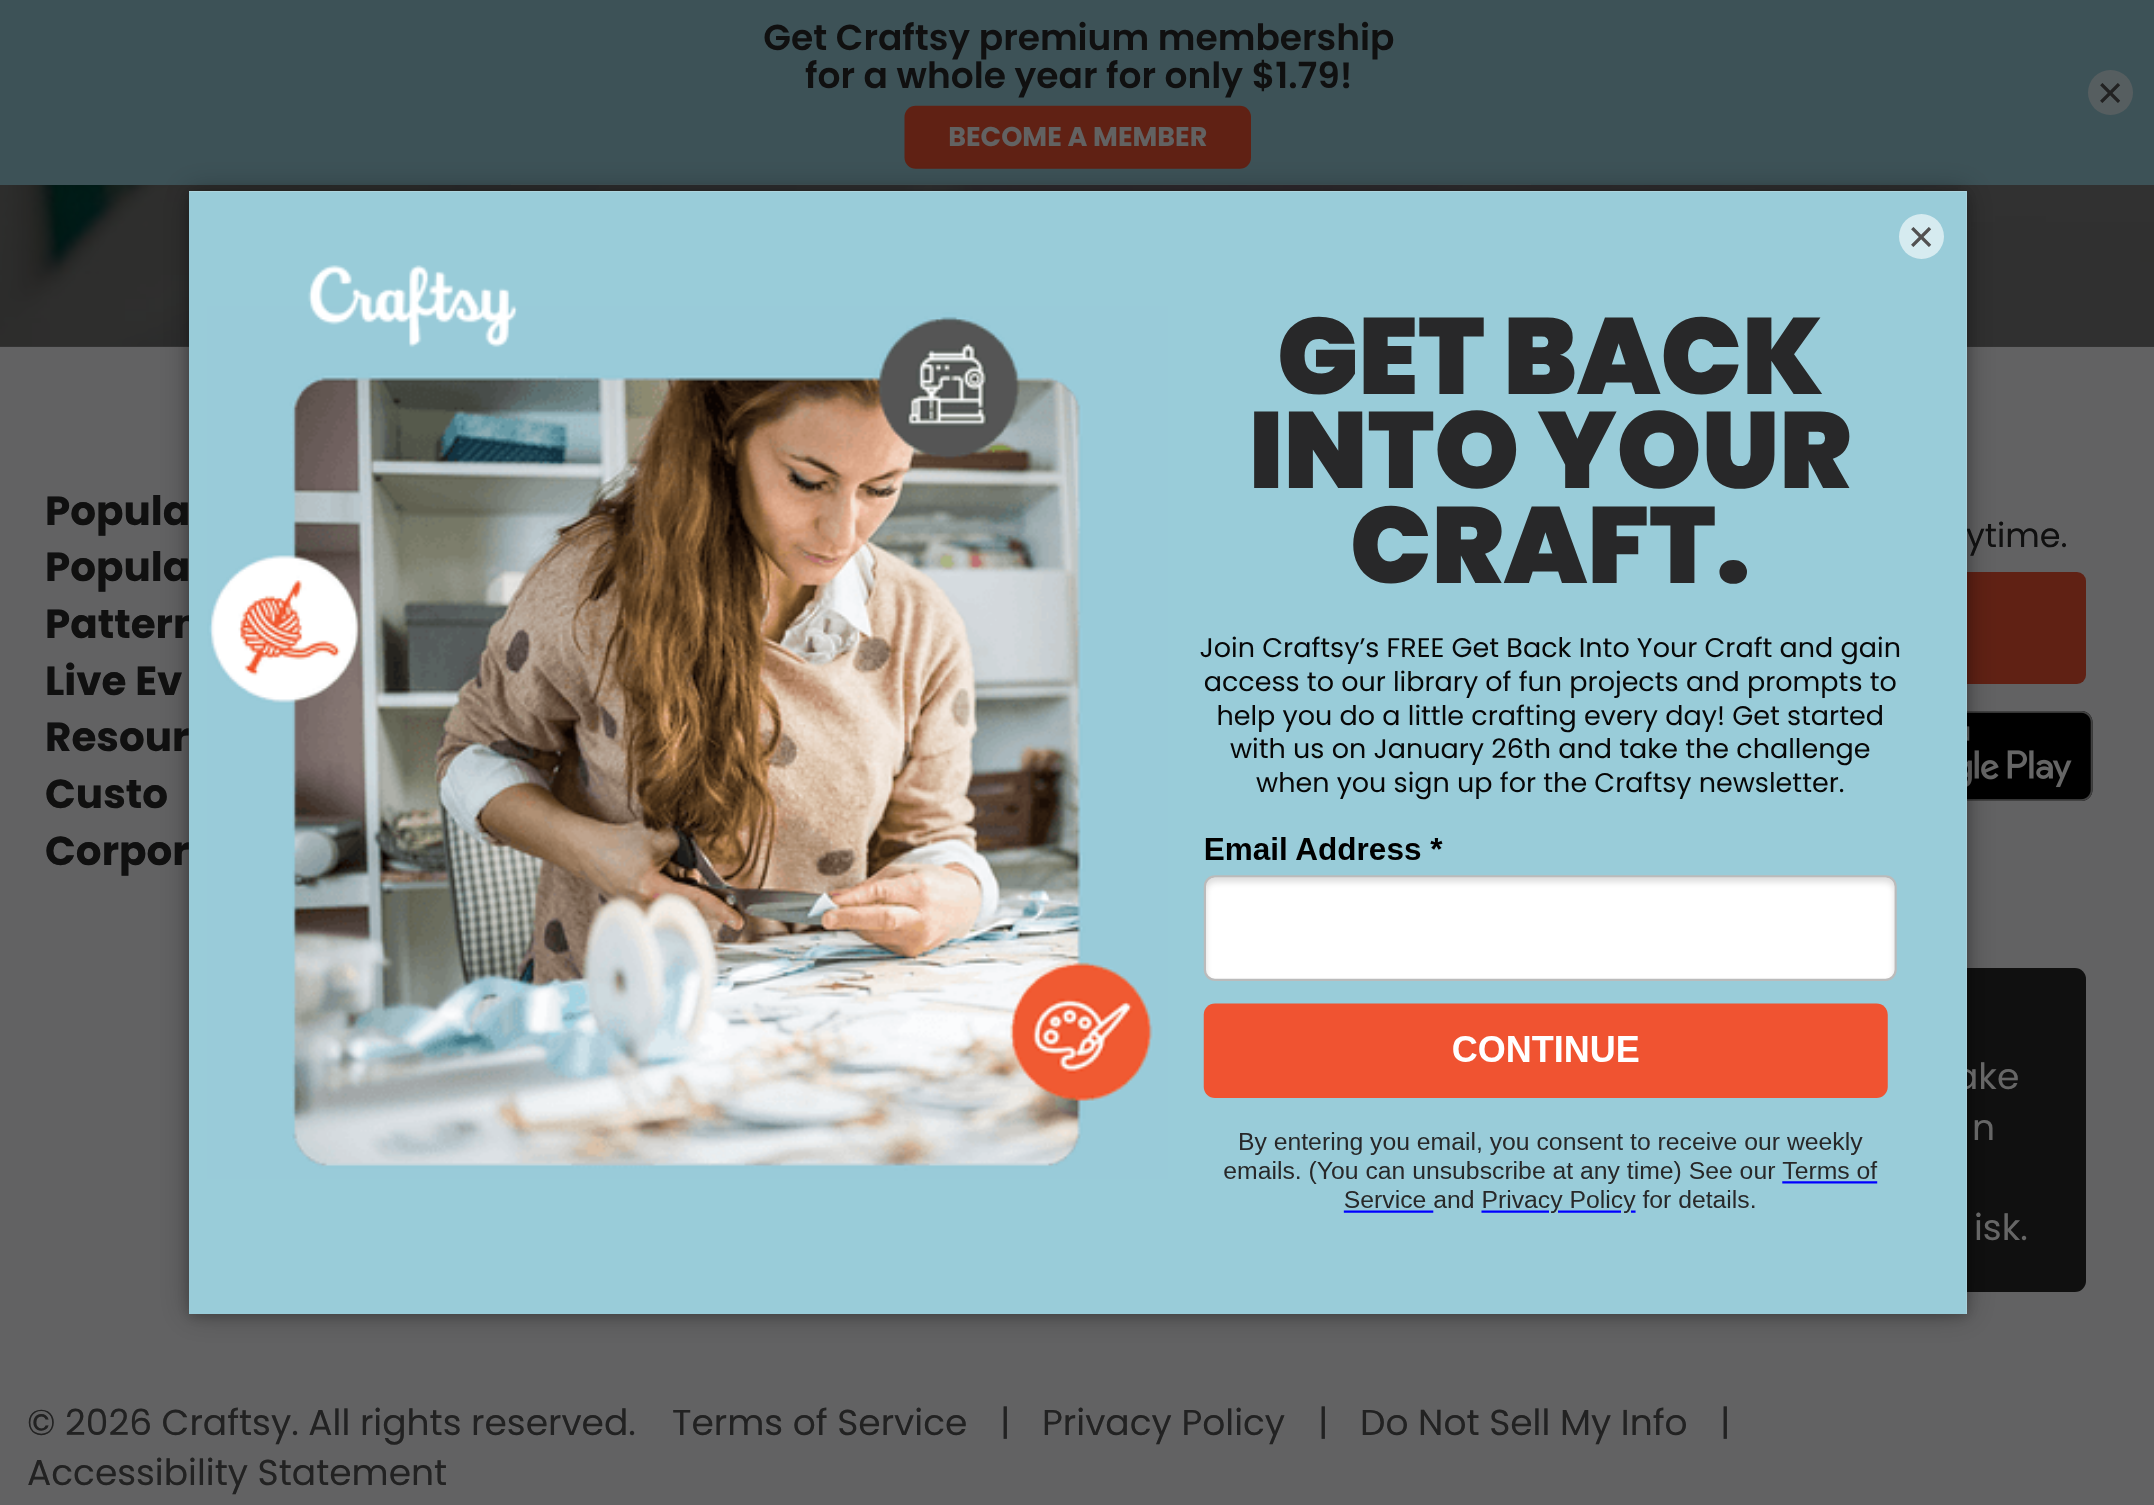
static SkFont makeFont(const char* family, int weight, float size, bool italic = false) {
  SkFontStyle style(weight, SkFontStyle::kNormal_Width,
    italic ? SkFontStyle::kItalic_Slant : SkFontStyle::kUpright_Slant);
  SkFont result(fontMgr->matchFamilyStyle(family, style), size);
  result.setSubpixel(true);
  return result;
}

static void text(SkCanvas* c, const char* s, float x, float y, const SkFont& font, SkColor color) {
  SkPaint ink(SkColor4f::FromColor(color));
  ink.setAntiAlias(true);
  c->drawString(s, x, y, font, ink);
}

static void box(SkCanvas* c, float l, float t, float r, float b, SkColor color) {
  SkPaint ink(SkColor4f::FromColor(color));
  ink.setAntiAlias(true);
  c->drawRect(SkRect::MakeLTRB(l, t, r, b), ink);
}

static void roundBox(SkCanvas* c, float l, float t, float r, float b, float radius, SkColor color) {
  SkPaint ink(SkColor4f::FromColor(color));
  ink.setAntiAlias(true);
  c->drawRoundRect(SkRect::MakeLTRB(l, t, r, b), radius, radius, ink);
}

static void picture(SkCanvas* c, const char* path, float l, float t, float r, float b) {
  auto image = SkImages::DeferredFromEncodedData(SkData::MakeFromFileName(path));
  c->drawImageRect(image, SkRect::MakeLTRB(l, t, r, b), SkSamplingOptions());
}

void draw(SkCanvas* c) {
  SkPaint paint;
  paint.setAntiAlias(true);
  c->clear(0xff626263);
  picture(c, "img_01.png", 0, 0, 2154, 185);
  paint.setColor(0xff565e60);
  c->drawCircle(2110.5f, 92.5f, 22.5f, paint);
  SkFont face1 = makeFont("Liberation Sans", 400, 45);
  text(c, "×", 2097, 108, face1, 0xff222222);
  box(c, 0, 346, 2154, 347, 0xff333333);
  picture(c, "img_03.png", 0, 185, 2154, 346);
  roundBox(c, 1501, 572, 2086, 684, 9, 0xff602114);
  picture(c, "img_04.png", 1967, 711, 2093, 801);
  roundBox(c, 1501, 968, 2086, 1292, 11, 0xff101010);
  paint.setColor(0x4d000000);
  paint.setMaskFilter(SkMaskFilter::MakeBlur(kNormal_SkBlurStyle, 13.5f));
  c->drawRect(SkRect::MakeLTRB(189, 191, 1967, 1314), paint);
  paint.setMaskFilter(nullptr);
  paint.setColor(0x33000000);
  paint.setMaskFilter(SkMaskFilter::MakeBlur(kNormal_SkBlurStyle, 5.5f));
  c->drawRect(SkRect::MakeLTRB(189, 194, 1967, 1316), paint);
  paint.setMaskFilter(nullptr);
  SkFont face2 = makeFont("Poppins", 700, 40.5f);
  text(c, "Pattern", 45, 638, face2, 0xff101010);
  SkFont face3 = makeFont("Poppins", 400, 33.5f);
  text(c, "ytime.", 1966, 547, face3, 0xff101010);
  SkFont face4 = makeFont("Poppins", 400, 36);
  text(c, "ake", 1954, 1089, face4, 0xff666666);
  picture(c, "img_02.png", 189, 191, 1967, 1314);
  paint.setColor(0xffd6ebf0);
  c->drawCircle(1921.5f, 236.5f, 22.5f, paint);
  text(c, "×", 1908, 252, face1, 0xff525151);
  text(c, "Popula", 45, 525, face2, 0xff101010);
  text(c, "Popula", 45, 581, face2, 0xff101010);
  text(c, "Live Ev", 45, 695, face2, 0xff101010);
  text(c, "Resour", 45, 751, face2, 0xff101010);
  text(c, "Custo", 45, 808, face2, 0xff101010);
  text(c, "Corpor", 45, 865, face2, 0xff101010);
  text(c, "n", 1972, 1140, face4, 0xff666666);
  text(c, "isk.", 1974, 1240, face4, 0xff666666);
  text(c, "|", 1720, 1435, face4, 0xff222222);
  text(c, "Accessibility Statement", 27, 1485, face4, 0xff222222);
  text(c, "Terms of Service", 672, 1435, face4, 0xff222222);
  text(c, "|", 1000, 1435, face4, 0xff222222);
  text(c, "Privacy Policy", 1042, 1435, face4, 0xff222222);
  text(c, "|", 1318, 1435, face4, 0xff222222);
  text(c, "Do Not Sell My Info", 1360, 1435, face4, 0xff222222);
  text(c, "© 2026 Craftsy. All rights reserved.", 27, 1435, face4, 0xff222222);
}
